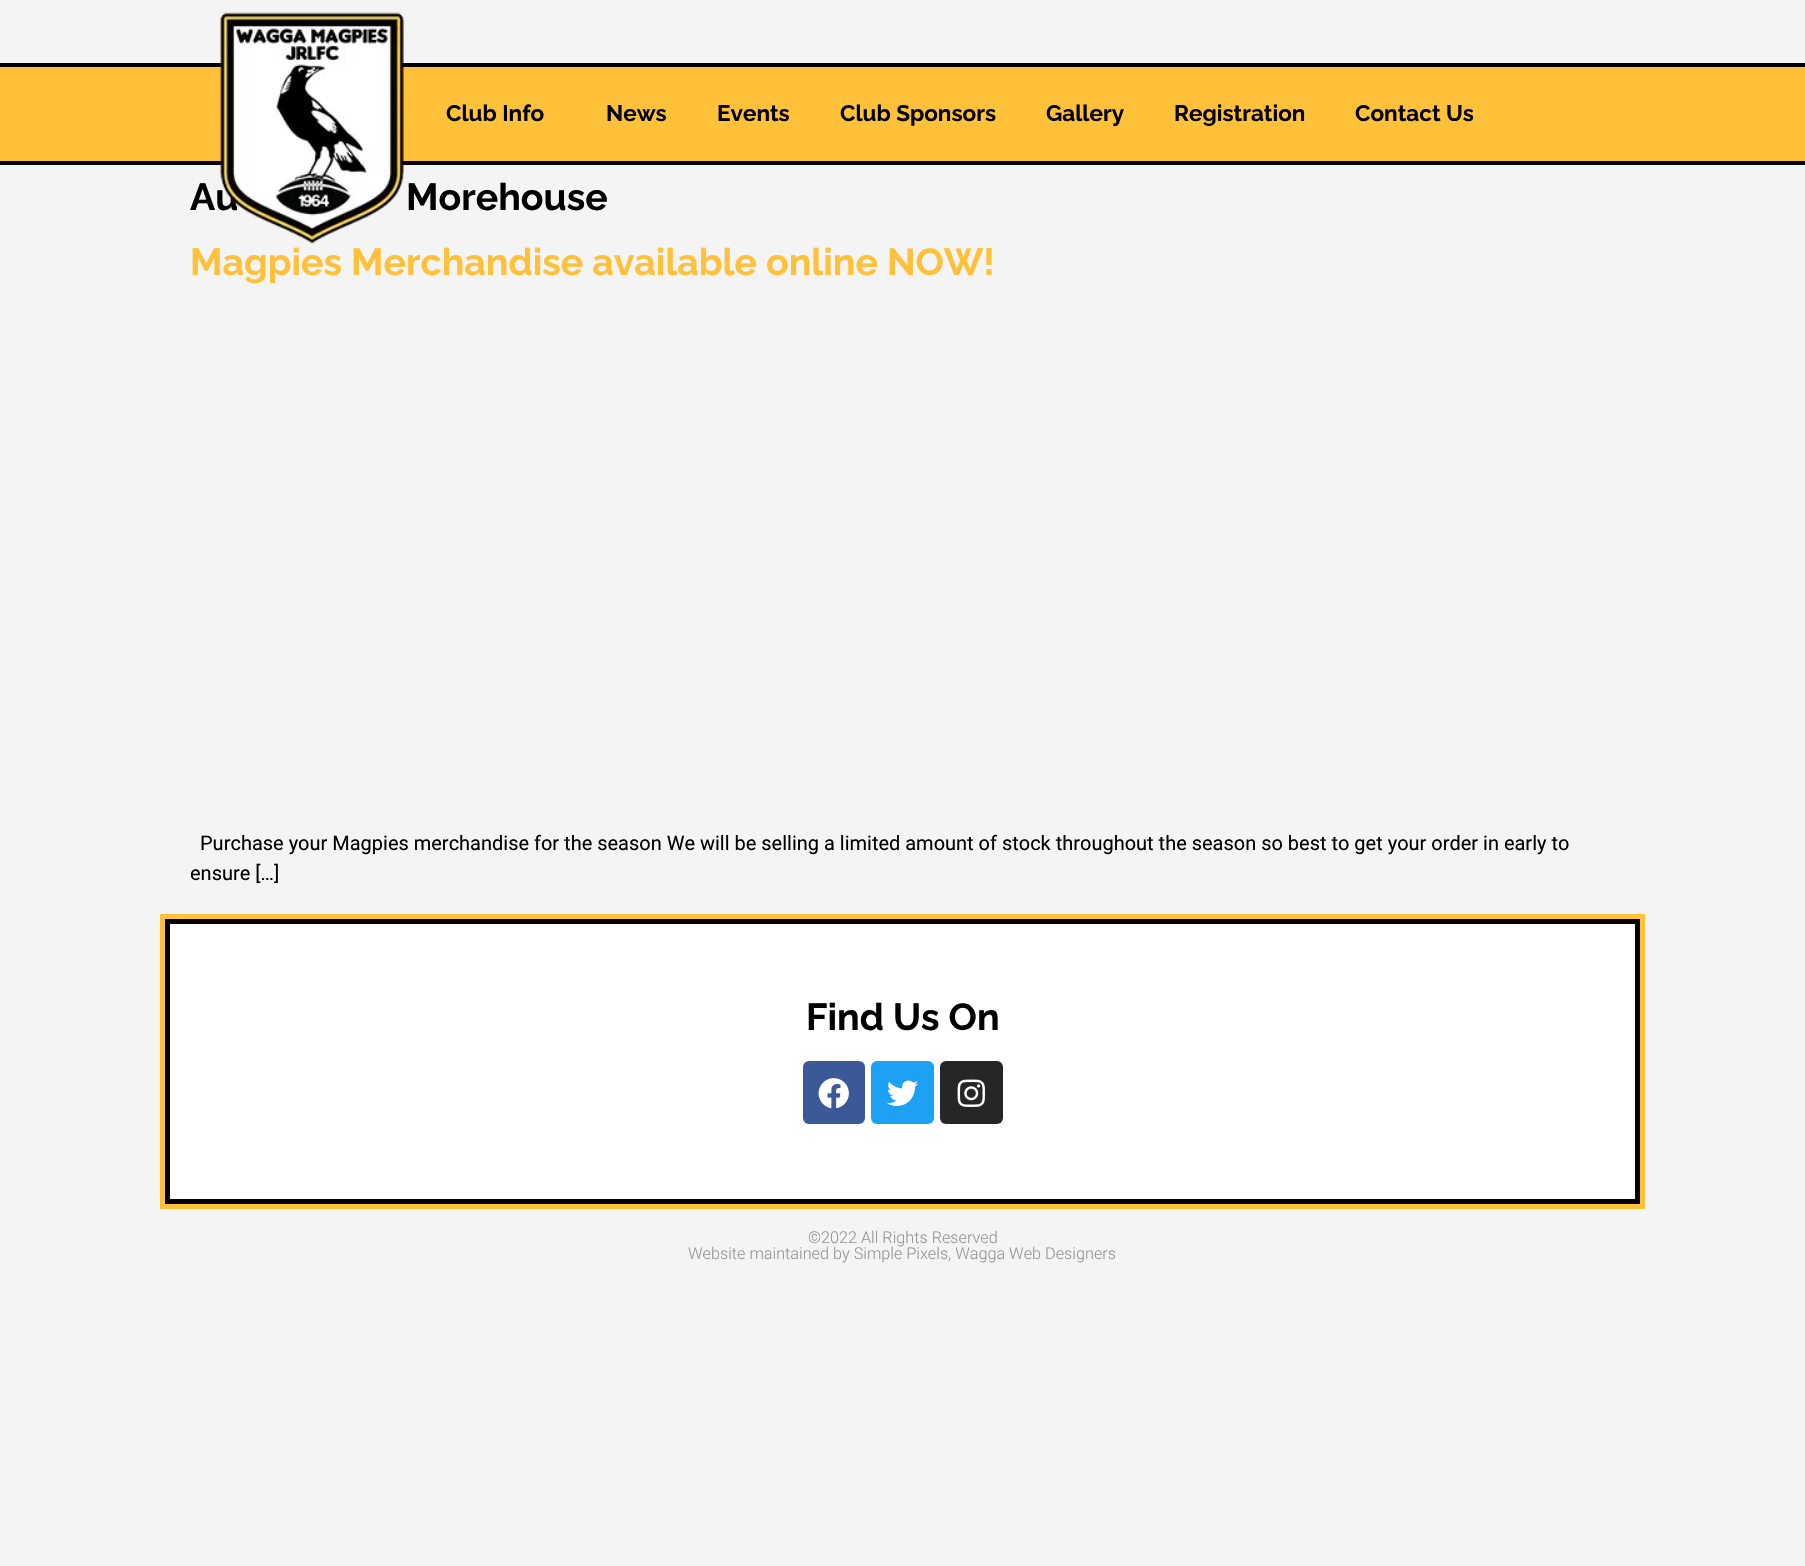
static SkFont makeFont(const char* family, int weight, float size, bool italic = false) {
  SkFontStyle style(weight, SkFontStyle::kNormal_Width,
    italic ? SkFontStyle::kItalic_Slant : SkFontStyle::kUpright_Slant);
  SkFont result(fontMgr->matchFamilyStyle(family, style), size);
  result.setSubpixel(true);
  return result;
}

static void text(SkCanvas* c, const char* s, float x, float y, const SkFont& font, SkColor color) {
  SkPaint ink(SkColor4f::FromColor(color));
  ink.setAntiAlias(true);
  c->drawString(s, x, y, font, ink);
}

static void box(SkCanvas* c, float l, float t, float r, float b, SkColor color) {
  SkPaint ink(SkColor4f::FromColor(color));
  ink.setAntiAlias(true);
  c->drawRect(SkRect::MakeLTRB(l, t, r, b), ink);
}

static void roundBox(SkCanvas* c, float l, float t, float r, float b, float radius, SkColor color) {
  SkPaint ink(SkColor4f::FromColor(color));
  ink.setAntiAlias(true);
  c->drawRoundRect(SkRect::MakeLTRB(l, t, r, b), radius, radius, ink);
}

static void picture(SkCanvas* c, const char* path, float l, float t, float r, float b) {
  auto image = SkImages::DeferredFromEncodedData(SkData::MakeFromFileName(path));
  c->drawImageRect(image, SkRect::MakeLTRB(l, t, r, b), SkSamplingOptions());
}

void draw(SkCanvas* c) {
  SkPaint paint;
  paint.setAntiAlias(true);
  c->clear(0xfff4f4f4);
  box(c, 0, 67, 1805, 161, 0xffffc139);
  box(c, 0, 63, 1805, 67, 0xff000000);
  box(c, 0, 161, 1805, 165, 0xff000000);
  SkFont face1 = makeFont("Raleway", 700, 37.5f);
  text(c, "Au", 190, 210, face1, 0xff000000);
  picture(c, "img_01.png", 219, 12, 404, 244);
  SkFont face2 = makeFont("Raleway", 700, 22.5f);
  text(c, "Club Info", 446, 121, face2, 0xff000000);
  text(c, "News", 606, 121, face2, 0xff000000);
  text(c, "Events", 717, 121, face2, 0xff000000);
  text(c, "Club Sponsors", 840, 121, face2, 0xff000000);
  text(c, "Gallery", 1046, 121, face2, 0xff000000);
  text(c, "Registration", 1174, 121, face2, 0xff000000);
  text(c, "Contact Us", 1355, 121, face2, 0xff000000);
  text(c, "Morehouse", 406, 210, face1, 0xff000000);
  text(c, "Magpies Merchandise available online NOW!", 190, 275, face1, 0xffffc139);
  SkFont face3 = makeFont("Roboto", 400, 20);
  text(c, "Purchase your Magpies merchandise for the season We will be selling a limited amount of stock throughout the season so best to get your order in early to", 200, 850, face3, 0xff000000);
  text(c, "ensure […]", 190, 880, face3, 0xff000000);
  paint.setColor(0xffffffff);
  c->drawRect(SkRect::MakeLTRB(167.5f, 921.5f, 1637.5f, 1201.5f), paint);
  paint.setStyle(SkPaint::kStroke_Style);
  paint.setStrokeWidth(5);
  paint.setColor(0xff000000);
  c->drawRect(SkRect::MakeLTRB(167.5f, 921.5f, 1637.5f, 1201.5f), paint);
  paint.setColor(0xffffc139);
  c->drawRect(SkRect::MakeLTRB(162.5f, 916.5f, 1642.5f, 1206.5f), paint);
  text(c, "Find Us On", 806, 1030, face1, 0xff000000);
  roundBox(c, 803, 1061, 865, 1124, 6, 0xff3b5998);
  picture(c, "img_02.png", 818, 1078, 849, 1109);
  roundBox(c, 871, 1061, 934, 1124, 6, 0xff1da1f2);
  picture(c, "img_03.png", 887, 1080, 918, 1106);
  roundBox(c, 940, 1061, 1003, 1124, 6, 0xff262626);
  picture(c, "img_04.png", 957, 1079, 985, 1107);
  SkFont face4 = makeFont("Roboto", 300, 16.25f);
  text(c, "©2022 All Rights Reserved", 808, 1243, face4, 0xff959595);
  text(c, "Website maintained by Simple Pixels, Wagga Web Designers", 688, 1259, face4, 0xff959595);
}
